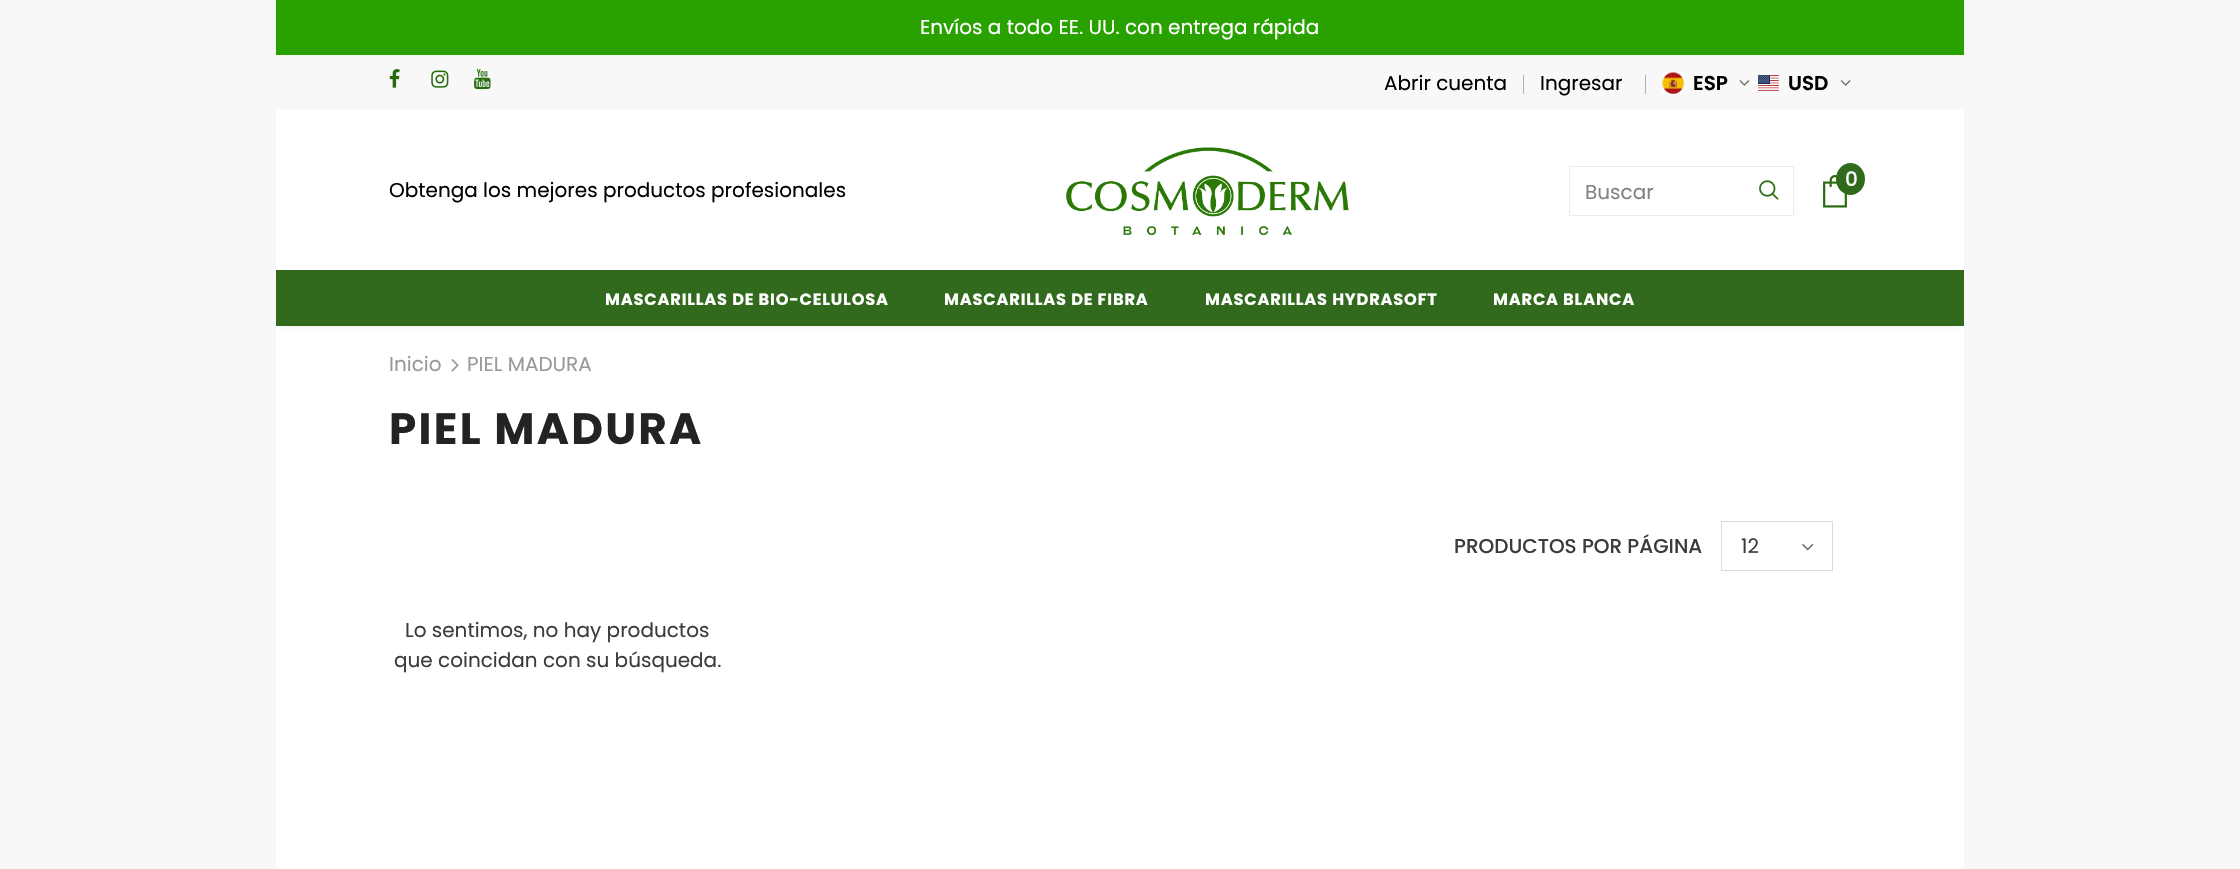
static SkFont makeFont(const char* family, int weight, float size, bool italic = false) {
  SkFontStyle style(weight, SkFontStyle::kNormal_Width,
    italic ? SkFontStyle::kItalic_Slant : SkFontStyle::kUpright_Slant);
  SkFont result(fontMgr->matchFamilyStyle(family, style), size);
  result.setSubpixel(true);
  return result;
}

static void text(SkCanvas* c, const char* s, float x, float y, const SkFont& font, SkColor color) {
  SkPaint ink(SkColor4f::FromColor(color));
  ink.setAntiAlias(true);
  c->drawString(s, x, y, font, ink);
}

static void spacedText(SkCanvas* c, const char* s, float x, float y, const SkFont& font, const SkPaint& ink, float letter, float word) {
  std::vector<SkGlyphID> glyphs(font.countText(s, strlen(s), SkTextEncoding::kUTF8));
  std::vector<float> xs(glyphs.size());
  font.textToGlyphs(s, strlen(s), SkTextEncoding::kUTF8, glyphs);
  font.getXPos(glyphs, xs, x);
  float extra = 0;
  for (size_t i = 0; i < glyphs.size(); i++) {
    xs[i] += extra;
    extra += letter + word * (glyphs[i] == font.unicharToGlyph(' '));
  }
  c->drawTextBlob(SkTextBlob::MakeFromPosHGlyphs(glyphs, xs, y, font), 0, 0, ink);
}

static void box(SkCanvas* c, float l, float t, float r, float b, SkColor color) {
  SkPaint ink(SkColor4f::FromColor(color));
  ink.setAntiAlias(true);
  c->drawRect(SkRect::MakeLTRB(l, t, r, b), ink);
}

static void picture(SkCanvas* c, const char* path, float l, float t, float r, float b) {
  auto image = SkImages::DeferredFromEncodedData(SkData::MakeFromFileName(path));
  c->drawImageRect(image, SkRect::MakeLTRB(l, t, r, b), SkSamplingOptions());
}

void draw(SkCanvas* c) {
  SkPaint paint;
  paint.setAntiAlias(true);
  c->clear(0xfff8f8f8);
  box(c, 276, 110, 1964, 270, 0xffffffff);
  box(c, 276, 0, 1964, 55, 0xff29a100);
  SkFont face1 = makeFont("Poppins", 400, 20);
  text(c, "Envíos a todo EE. UU. con entrega rápida", 920, 34, face1, 0xffffffff);
  picture(c, "img_01.png", 389, 69, 400, 88);
  picture(c, "img_02.png", 431, 70, 449, 88);
  picture(c, "img_03.png", 474, 69, 491, 90);
  text(c, "Abrir cuenta", 1384, 90, face1, 0xff000000);
  box(c, 1523, 75, 1524, 94, 0xffb3b3b3);
  text(c, "Ingresar", 1540, 90, face1, 0xff000000);
  box(c, 1645, 75, 1646, 94, 0xffb3b3b3);
  picture(c, "img_04.png", 1662, 72, 1684, 94);
  SkFont face2 = makeFont("Poppins", 600, 20);
  text(c, "ESP", 1693, 90, face2, 0xff000000);
  picture(c, "img_05.png", 1739, 80, 1750, 86);
  picture(c, "img_06.png", 1758, 75, 1779, 91);
  text(c, "USD", 1788, 90, face2, 0xff000000);
  picture(c, "img_07.png", 1840, 80, 1851, 86);
  text(c, "Obtenga los mejores productos profesionales", 389, 197, face1, 0xff000000);
  picture(c, "img_08.png", 1066, 147, 1349, 235);
  picture(c, "img_09.png", 1823, 175, 1847, 208);
  paint.setColor(0xff316a1c);
  c->drawOval(SkRect::MakeLTRB(1836, 163, 1865, 195), paint);
  SkFont face3 = makeFont("Poppins", 500, 20);
  text(c, "0", 1845, 186, face3, 0xffffffff);
  paint.setStyle(SkPaint::kStroke_Style);
  paint.setStrokeWidth(1);
  paint.setColor(0xffebebeb);
  c->drawRect(SkRect::MakeLTRB(1569.5f, 166.5f, 1793.5f, 215.5f), paint);
  text(c, "Buscar", 1585, 199, face1, 0xff848484);
  picture(c, "img_10.png", 1759, 180, 1779, 200);
  box(c, 276, 326, 1964, 869, 0xffffffff);
  paint.setStyle(SkPaint::kFill_Style);
  paint.setColor(0x1a000000);
  paint.setMaskFilter(SkMaskFilter::MakeBlur(kNormal_SkBlurStyle, 2));
  c->drawRect(SkRect::MakeLTRB(280, 278, 1960, 326), paint);
  paint.setMaskFilter(nullptr);
  box(c, 276, 270, 1964, 326, 0xff316a1c);
  SkFont face4 = makeFont("Poppins", 700, 16.25f);
  paint.setColor(0xffffffff);
  spacedText(c, "MASCARILLAS DE BIO-CELULOSA", 605, 305, face4, paint, 0.8f, 0);
  spacedText(c, "MASCARILLAS DE FIBRA", 944, 305, face4, paint, 0.8f, 0);
  spacedText(c, "MASCARILLAS HYDRASOFT", 1205, 305, face4, paint, 0.8f, 0);
  spacedText(c, "MARCA BLANCA", 1493, 305, face4, paint, 0.8f, 0);
  text(c, "Inicio", 389, 371, face1, 0xff999999);
  picture(c, "img_11.png", 451, 359, 459, 372);
  text(c, "PIEL MADURA", 467, 371, face1, 0xff999999);
  SkFont face5 = makeFont("Poppins", 700, 43.75f);
  paint.setColor(0xff232323);
  spacedText(c, "PIEL MADURA", 389, 444, face5, paint, 2.25f, 0);
  text(c, "PRODUCTOS POR PÁGINA", 1454, 553, face3, 0xff3c3c3c);
  paint.setStyle(SkPaint::kStroke_Style);
  paint.setColor(0xffdadada);
  c->drawRect(SkRect::MakeLTRB(1721.5f, 521.5f, 1832.5f, 570.5f), paint);
  text(c, "12", 1741, 553, face1, 0xff3c3c3c);
  picture(c, "img_12.png", 1802, 544, 1814, 551);
  text(c, "Lo sentimos, no hay productos", 405, 637, face1, 0xff3c3c3c);
  text(c, "que coincidan con su búsqueda.", 394, 667, face1, 0xff3c3c3c);
}
